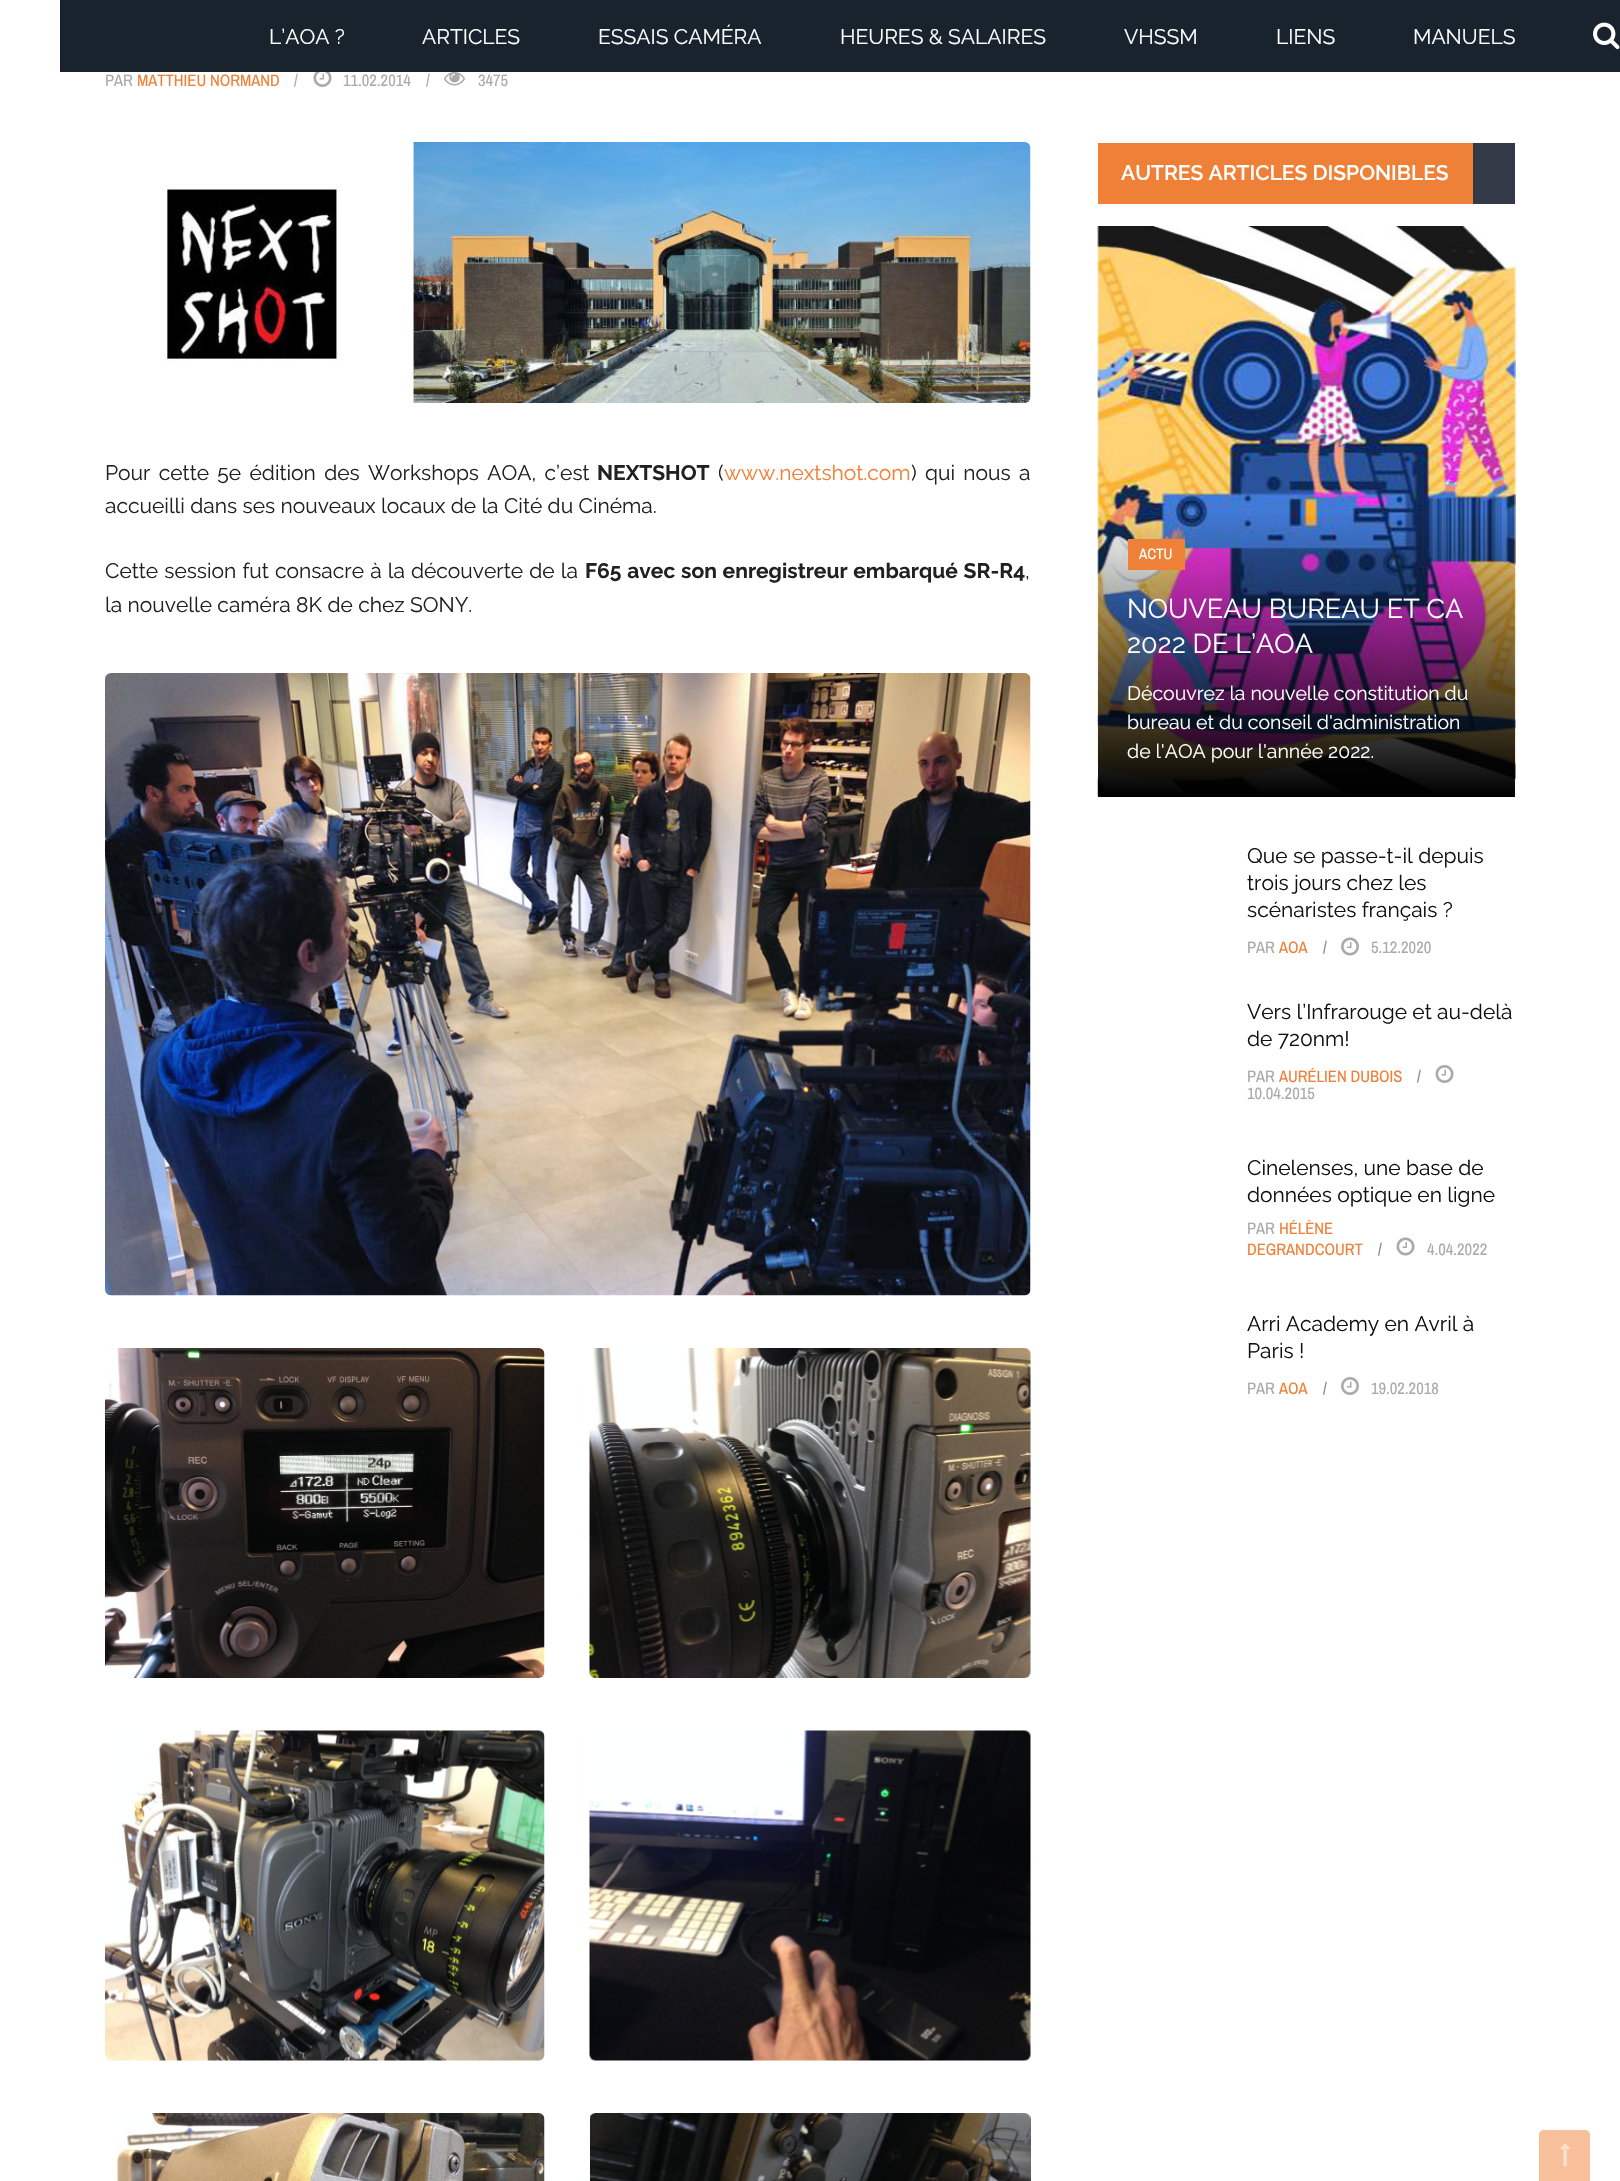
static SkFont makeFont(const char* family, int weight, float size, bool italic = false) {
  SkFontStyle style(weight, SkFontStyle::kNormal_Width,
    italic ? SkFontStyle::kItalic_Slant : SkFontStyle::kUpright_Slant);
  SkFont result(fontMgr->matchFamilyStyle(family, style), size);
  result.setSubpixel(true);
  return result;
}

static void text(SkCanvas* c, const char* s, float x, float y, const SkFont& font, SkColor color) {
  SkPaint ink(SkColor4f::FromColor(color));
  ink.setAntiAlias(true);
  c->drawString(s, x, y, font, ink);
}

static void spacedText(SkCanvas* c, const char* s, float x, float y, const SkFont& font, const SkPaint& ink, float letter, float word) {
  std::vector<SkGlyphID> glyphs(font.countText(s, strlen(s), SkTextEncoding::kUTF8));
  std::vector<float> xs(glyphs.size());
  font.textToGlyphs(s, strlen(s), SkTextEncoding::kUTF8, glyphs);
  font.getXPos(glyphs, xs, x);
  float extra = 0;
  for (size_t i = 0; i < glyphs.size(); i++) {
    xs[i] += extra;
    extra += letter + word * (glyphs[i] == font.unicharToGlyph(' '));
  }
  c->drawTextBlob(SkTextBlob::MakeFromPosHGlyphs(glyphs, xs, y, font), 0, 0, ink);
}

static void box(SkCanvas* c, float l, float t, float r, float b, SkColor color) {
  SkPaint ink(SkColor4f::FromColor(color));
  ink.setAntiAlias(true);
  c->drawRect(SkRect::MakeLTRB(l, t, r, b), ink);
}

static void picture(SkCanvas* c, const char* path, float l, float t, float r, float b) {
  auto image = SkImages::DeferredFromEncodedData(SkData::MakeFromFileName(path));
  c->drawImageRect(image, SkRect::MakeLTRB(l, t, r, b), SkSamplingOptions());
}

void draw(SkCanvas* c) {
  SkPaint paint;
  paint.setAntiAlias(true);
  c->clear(0xffffffff);
  box(c, 60, 0, 1620, 72, 0xff19232d);
  SkFont face1 = makeFont("Raleway", 400, 21);
  text(c, "L’AOA ?", 269, 44, face1, 0xffffffff);
  text(c, "ARTICLES", 422, 44, face1, 0xffffffff);
  text(c, "ESSAIS CAMÉRA", 598, 44, face1, 0xffffffff);
  text(c, "HEURES & SALAIRES", 840, 44, face1, 0xffffffff);
  text(c, "VHSSM", 1124, 44, face1, 0xffffffff);
  text(c, "LIENS", 1276, 44, face1, 0xffffffff);
  text(c, "MANUELS", 1413, 44, face1, 0xffffffff);
  picture(c, "img_01.png", 1593, 22, 1620, 50);
  SkFont face2 = makeFont("Archivo Narrow", 400, 16.5f);
  text(c, "PAR", 105, 86, face2, 0xffaaaaaa);
  text(c, "MATTHIEU NORMAND", 137, 86, face2, 0xffef8037);
  text(c, "/", 294, 86, face2, 0xffaaaaaa);
  picture(c, "img_02.png", 313, 72, 332, 87);
  text(c, "11.02.2014", 343, 86, face2, 0xffaaaaaa);
  text(c, "/", 426, 86, face2, 0xffaaaaaa);
  picture(c, "img_03.png", 444, 72, 465, 86);
  text(c, "3475", 478, 86, face2, 0xffaaaaaa);
  picture(c, "img_04.png", 164, 142, 1031, 403);
  paint.setColor(0xff212121);
  spacedText(c, "Pour cette 5e édition des Workshops AOA, c’est", 105, 480, face1, paint, 0, 3);
  SkFont face3 = makeFont("Raleway", 700, 21);
  text(c, "NEXTSHOT", 597, 480, face3, 0xff212121);
  text(c, "(", 718, 480, face1, 0xff212121);
  text(c, "www.nextshot.com", 724, 480, face1, 0xffef8037);
  spacedText(c, ") qui nous a", 911, 480, face1, paint, 0, 3);
  text(c, "accueilli dans ses nouveaux locaux de la Cité du Cinéma.", 105, 513, face1, 0xff212121);
  spacedText(c, "Cette session fut consacre à la découverte de la", 105, 578, face1, paint, 0, 0.75f);
  spacedText(c, "F65 avec son enregistreur embarqué SR-R4", 585, 578, face3, paint, 0, 0.75f);
  text(c, ",", 1025, 578, face1, 0xff212121);
  text(c, "la nouvelle caméra 8K de chez SONY.", 105, 612, face1, 0xff212121);
  picture(c, "img_05.png", 105, 673, 1031, 1296);
  picture(c, "img_06.png", 105, 1348, 545, 1678);
  picture(c, "img_07.png", 589, 1348, 1031, 1678);
  picture(c, "img_08.png", 105, 1730, 545, 2061);
  picture(c, "img_09.png", 589, 1730, 1031, 2061);
  picture(c, "img_10.png", 116, 2113, 545, 2181);
  picture(c, "img_11.png", 590, 2113, 1031, 2181);
  box(c, 1473, 143, 1515, 204, 0xff333946);
  box(c, 1098, 143, 1473, 204, 0xffef8037);
  SkFont face4 = makeFont("Raleway", 600, 21);
  text(c, "AUTRES ARTICLES DISPONIBLES", 1121, 180, face4, 0xffffffff);
  picture(c, "img_12.png", 1097, 226, 1516, 796);
  {
    const SkColor colors[] = {0x00000000, 0xff000000};
    const float stops[] = {0, 1};
    const SkPoint ends[] = {{1307, 509}, {1307, 797}};
    paint.setShader(SkGradientShader::MakeLinear(ends, colors, stops, 2, SkTileMode::kClamp));
    paint.setAlpha(255);
  }
  c->drawRect(SkRect::MakeLTRB(1098, 515, 1515, 797), paint);
  box(c, 1128, 539, 1185, 570, 0xffef8037);
  SkFont face5 = makeFont("Archivo Narrow", 400, 15);
  text(c, "ACTU", 1139, 559, face5, 0xffffffff);
  SkFont face6 = makeFont("Raleway", 400, 27);
  text(c, "NOUVEAU BUREAU ET CA", 1127, 618, face6, 0xffffffff);
  text(c, "2022 DE L’AOA", 1127, 653, face6, 0xffffffff);
  SkFont face7 = makeFont("Raleway", 400, 19.5f);
  text(c, "Découvrez la nouvelle constitution du", 1127, 700, face7, 0xffffffff);
  text(c, "bureau et du conseil d'administration", 1127, 729, face7, 0xffffffff);
  text(c, "de l'AOA pour l'année 2022.", 1127, 758, face7, 0xffffffff);
  text(c, "Que se passe-t-il depuis", 1247, 863, face1, 0xff111111);
  text(c, "trois jours chez les", 1247, 890, face1, 0xff111111);
  text(c, "scénaristes français ?", 1247, 917, face1, 0xff111111);
  text(c, "PAR", 1247, 953, face2, 0xffaaaaaa);
  text(c, "AOA", 1279, 953, face2, 0xffef8037);
  text(c, "/", 1323, 953, face2, 0xff888888);
  picture(c, "img_13.png", 1341, 937, 1359, 956);
  text(c, "5.12.2020", 1371, 953, face2, 0xffaaaaaa);
  text(c, "Vers l’Infrarouge et au-delà", 1247, 1019, face1, 0xff111111);
  text(c, "de 720nm!", 1247, 1046, face1, 0xff111111);
  text(c, "PAR", 1247, 1082, face2, 0xffaaaaaa);
  text(c, "AURÉLIEN DUBOIS", 1279, 1082, face2, 0xffef8037);
  text(c, "/", 1417, 1082, face2, 0xff888888);
  picture(c, "img_14.png", 1435, 1065, 1454, 1083);
  text(c, "10.04.2015", 1247, 1099, face2, 0xffaaaaaa);
  text(c, "Cinelenses, une base de", 1247, 1175, face1, 0xff111111);
  text(c, "données optique en ligne", 1247, 1202, face1, 0xff111111);
  text(c, "PAR", 1247, 1234, face2, 0xffaaaaaa);
  text(c, "HÉLÈNE", 1279, 1234, face2, 0xffef8037);
  text(c, "DEGRANDCOURT", 1247, 1255, face2, 0xffef8037);
  text(c, "/", 1378, 1255, face2, 0xff888888);
  picture(c, "img_15.png", 1396, 1237, 1415, 1256);
  text(c, "4.04.2022", 1427, 1255, face2, 0xffaaaaaa);
  text(c, "Arri Academy en Avril à", 1247, 1331, face1, 0xff111111);
  text(c, "Paris !", 1247, 1358, face1, 0xff111111);
  text(c, "PAR", 1247, 1394, face2, 0xffaaaaaa);
  text(c, "AOA", 1279, 1394, face2, 0xffef8037);
  text(c, "/", 1323, 1394, face2, 0xff888888);
  picture(c, "img_16.png", 1341, 1377, 1359, 1395);
  text(c, "19.02.2018", 1371, 1394, face2, 0xffaaaaaa);
  paint.setShader(nullptr);
  paint.setColor(0xfff7c09b);
  c->drawPath(SkPathBuilder().moveTo(1544, 2130).lineTo(1585, 2130).cubicTo(1588, 2130, 1590, 2132, 1590, 2135).lineTo(1590, 2181).lineTo(1539, 2181).lineTo(1539, 2135).cubicTo(1539, 2132, 1541, 2130, 1544, 2130).close().detach(), paint);
  picture(c, "img_17.png", 1560, 2143, 1571, 2167);
}
